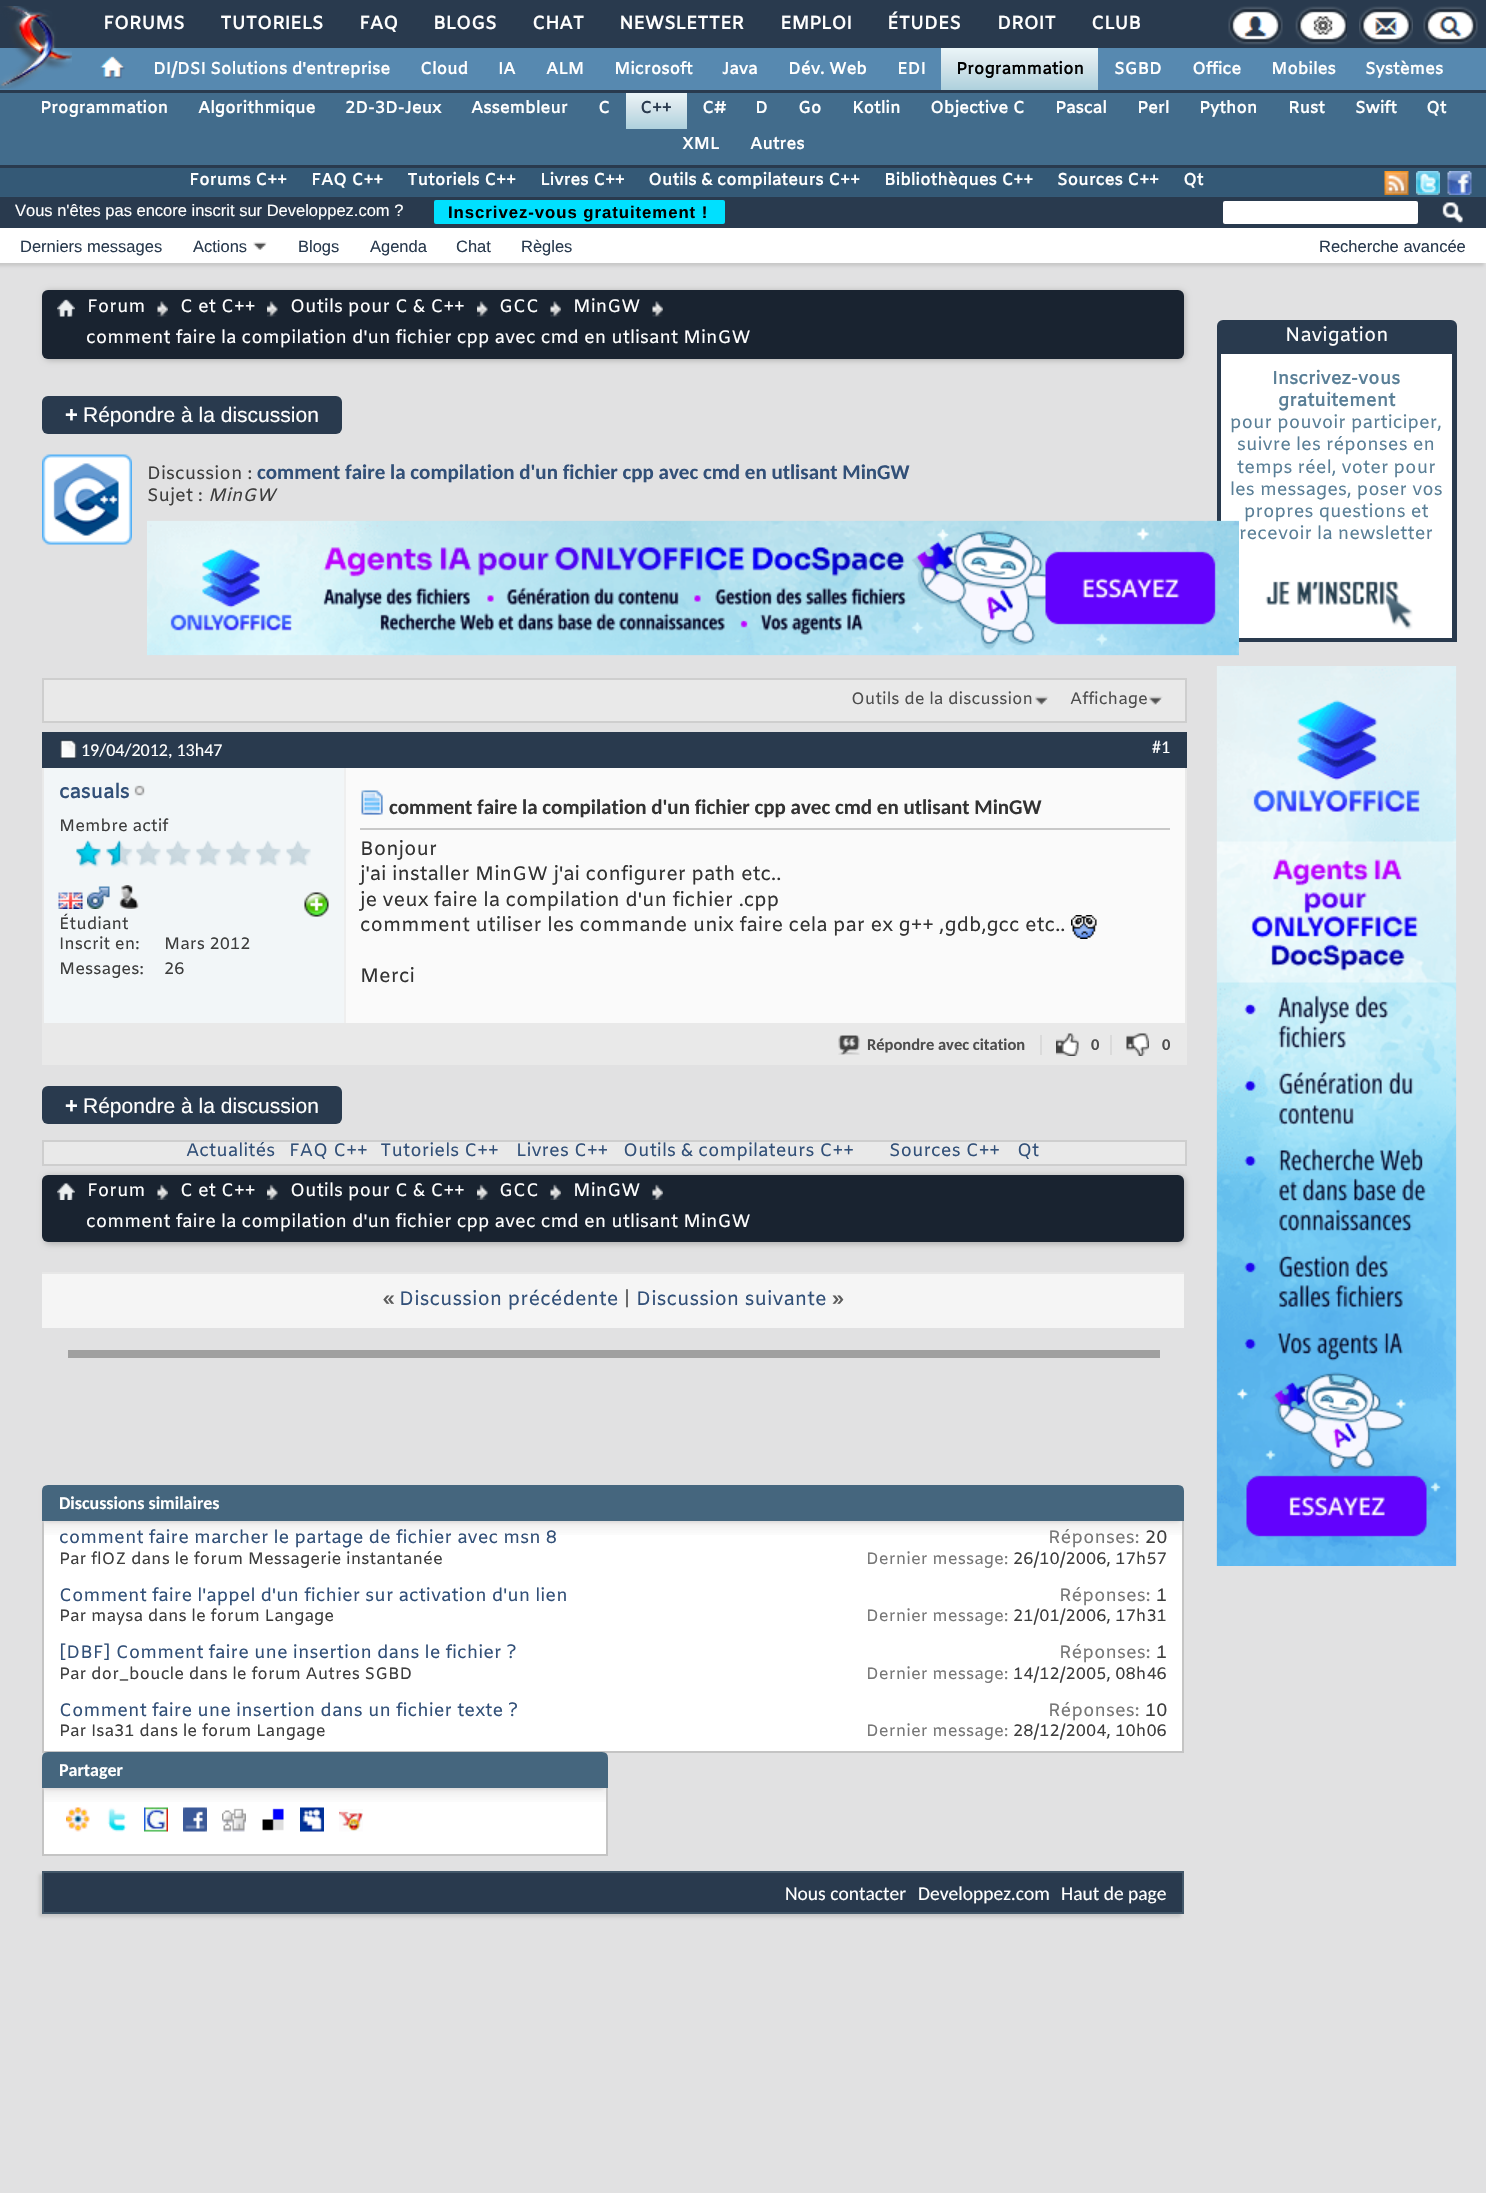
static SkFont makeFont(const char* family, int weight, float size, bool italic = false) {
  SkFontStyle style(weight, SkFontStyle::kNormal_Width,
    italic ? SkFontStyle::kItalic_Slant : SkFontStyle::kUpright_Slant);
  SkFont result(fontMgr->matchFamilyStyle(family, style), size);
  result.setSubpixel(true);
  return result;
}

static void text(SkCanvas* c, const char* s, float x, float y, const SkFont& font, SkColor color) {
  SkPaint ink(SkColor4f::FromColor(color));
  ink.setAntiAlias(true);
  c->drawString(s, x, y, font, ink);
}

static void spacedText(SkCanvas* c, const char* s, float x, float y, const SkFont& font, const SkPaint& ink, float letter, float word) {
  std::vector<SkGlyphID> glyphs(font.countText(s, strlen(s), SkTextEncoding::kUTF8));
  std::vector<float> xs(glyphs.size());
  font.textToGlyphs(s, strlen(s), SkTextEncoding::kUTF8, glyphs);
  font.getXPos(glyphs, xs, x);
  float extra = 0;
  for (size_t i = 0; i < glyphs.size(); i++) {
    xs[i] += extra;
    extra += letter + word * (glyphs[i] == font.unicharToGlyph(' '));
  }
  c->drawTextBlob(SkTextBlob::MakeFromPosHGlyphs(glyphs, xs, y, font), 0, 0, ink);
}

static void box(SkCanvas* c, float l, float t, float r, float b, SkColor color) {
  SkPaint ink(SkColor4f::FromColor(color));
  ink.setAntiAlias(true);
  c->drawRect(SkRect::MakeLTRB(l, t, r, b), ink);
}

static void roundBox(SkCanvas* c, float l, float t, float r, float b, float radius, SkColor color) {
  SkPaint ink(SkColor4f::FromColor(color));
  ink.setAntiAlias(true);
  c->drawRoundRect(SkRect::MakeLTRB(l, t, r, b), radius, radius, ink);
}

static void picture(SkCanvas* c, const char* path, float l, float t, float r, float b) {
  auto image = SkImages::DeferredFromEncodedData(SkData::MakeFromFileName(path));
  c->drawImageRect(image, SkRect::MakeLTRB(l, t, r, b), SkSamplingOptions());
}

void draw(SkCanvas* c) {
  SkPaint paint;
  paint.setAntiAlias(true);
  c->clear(0xff293a4e);
  box(c, 0, 48, 1486, 90, 0xff5789b0);
  picture(c, "img_01.png", 0, 6, 72, 89);
  SkFont face1 = makeFont("Amiko", 700, 18.25f);
  paint.setColor(0xffffffff);
  spacedText(c, "FORUMS", 103, 29, face1, paint, -0.25f, 0);
  spacedText(c, "TUTORIELS", 220, 29, face1, paint, -0.25f, 0);
  spacedText(c, "FAQ", 359, 29, face1, paint, -0.25f, 0);
  spacedText(c, "BLOGS", 433, 29, face1, paint, -0.25f, 0);
  spacedText(c, "CHAT", 532, 29, face1, paint, -0.25f, 0);
  spacedText(c, "NEWSLETTER", 619, 29, face1, paint, -0.25f, 0);
  spacedText(c, "EMPLOI", 780, 29, face1, paint, -0.25f, 0);
  spacedText(c, "ÉTUDES", 887, 29, face1, paint, -0.25f, 0);
  spacedText(c, "DROIT", 997, 29, face1, paint, -0.25f, 0);
  spacedText(c, "CLUB", 1091, 29, face1, paint, -0.25f, 0);
  picture(c, "img_02.png", 1228, 6, 1283, 45);
  picture(c, "img_03.png", 1295, 6, 1347, 45);
  picture(c, "img_04.png", 1359, 6, 1413, 45);
  picture(c, "img_05.png", 1423, 6, 1478, 45);
  picture(c, "img_06.png", 100, 56, 125, 79);
  SkFont face2 = makeFont("Amiko", 700, 16.5f);
  text(c, "DI/DSI Solutions d'entreprise", 153, 74, face2, 0xffffffff);
  text(c, "Cloud", 420, 74, face2, 0xffffffff);
  text(c, "IA", 498, 74, face2, 0xffffffff);
  text(c, "ALM", 546, 74, face2, 0xffffffff);
  text(c, "Microsoft", 614, 74, face2, 0xffffffff);
  text(c, "Java", 722, 74, face2, 0xffffffff);
  text(c, "Dév. Web", 788, 74, face2, 0xffffffff);
  text(c, "EDI", 897, 74, face2, 0xffffffff);
  {
    const SkColor colors[] = {0xffeaf5f8, 0xffd8e6ec, 0xffaed1dd};
    const float stops[] = {0, 0.37f, 1};
    const SkPoint ends[] = {{1019, 48}, {1019, 90}};
    paint.setShader(SkGradientShader::MakeLinear(ends, colors, stops, 3, SkTileMode::kClamp));
    paint.setAlpha(255);
  }
  c->drawRect(SkRect::MakeLTRB(941, 48, 1098, 90), paint);
  text(c, "Programmation", 956, 74, face2, 0xff000000);
  text(c, "SGBD", 1114, 74, face2, 0xffffffff);
  text(c, "Office", 1192, 74, face2, 0xffffffff);
  text(c, "Mobiles", 1271, 74, face2, 0xffffffff);
  text(c, "Systèmes", 1365, 74, face2, 0xffffffff);
  box(c, 0, 93, 1486, 165, 0xff426c8c);
  text(c, "Programmation", 40, 113, face2, 0xffffffff);
  text(c, "Algorithmique", 198, 113, face2, 0xffffffff);
  text(c, "2D-3D-Jeux", 345, 113, face2, 0xffffffff);
  text(c, "Assembleur", 471, 113, face2, 0xffffffff);
  text(c, "C", 598, 113, face2, 0xffffffff);
  {
    const SkColor colors[] = {0xffeaf5f8, 0xffd8e6ec, 0xffaed1dd};
    const float stops[] = {0, 0.37f, 1};
    const SkPoint ends[] = {{656, 93}, {656, 129}};
    paint.setShader(SkGradientShader::MakeLinear(ends, colors, stops, 3, SkTileMode::kClamp));
    paint.setAlpha(255);
  }
  c->drawRect(SkRect::MakeLTRB(626, 93, 687, 129), paint);
  text(c, "C++", 640, 113, face2, 0xff293a4e);
  text(c, "C#", 702, 113, face2, 0xffffffff);
  text(c, "D", 755, 113, face2, 0xffffffff);
  text(c, "Go", 798, 113, face2, 0xffffffff);
  text(c, "Kotlin", 852, 113, face2, 0xffffffff);
  text(c, "Objective C", 930, 113, face2, 0xffffffff);
  text(c, "Pascal", 1055, 113, face2, 0xffffffff);
  text(c, "Perl", 1137, 113, face2, 0xffffffff);
  text(c, "Python", 1199, 113, face2, 0xffffffff);
  text(c, "Rust", 1288, 113, face2, 0xffffffff);
  text(c, "Swift", 1355, 113, face2, 0xffffffff);
  text(c, "Qt", 1426, 113, face2, 0xffffffff);
  text(c, "XML", 682, 149, face2, 0xffffffff);
  text(c, "Autres", 750, 149, face2, 0xffffffff);
  box(c, 0, 168, 1486, 197, 0xff345976);
  text(c, "Forums C++", 189, 185, face2, 0xffffffff);
  text(c, "FAQ C++", 311, 185, face2, 0xffffffff);
  text(c, "Tutoriels C++", 407, 185, face2, 0xffffffff);
  text(c, "Livres C++", 540, 185, face2, 0xffffffff);
  text(c, "Outils & compilateurs C++", 648, 185, face2, 0xffffffff);
  text(c, "Bibliothèques C++", 884, 185, face2, 0xffffffff);
  text(c, "Sources C++", 1057, 185, face2, 0xffffffff);
  text(c, "Qt", 1183, 185, face2, 0xffffffff);
  picture(c, "img_07.png", 1384, 171, 1409, 195);
  picture(c, "img_08.png", 1416, 171, 1440, 195);
  picture(c, "img_09.png", 1447, 171, 1472, 195);
  box(c, 0, 263, 1486, 2120, 0xffe1e1e2);
  paint.setShader(nullptr);
  paint.setColor(0xffc8c8c8);
  paint.setMaskFilter(SkMaskFilter::MakeBlur(kNormal_SkBlurStyle, 1.5f));
  c->drawRect(SkRect::MakeLTRB(-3, 200, 1484, 266), paint);
  paint.setMaskFilter(nullptr);
  box(c, 0, 228, 1486, 263, 0xffffffff);
  box(c, 0, 197, 1486, 228, 0xff293a4e);
  SkFont face3 = makeFont("Liberation Sans", 400, 16.5f);
  text(c, "Vous n'êtes pas encore inscrit sur Developpez.com ?", 15, 216, face3, 0xffffffff);
  roundBox(c, 434, 200, 725, 224, 2, 0xff00e0ff);
  SkFont face4 = makeFont("Liberation Sans", 700, 16.75f);
  paint.setColor(0xff000000);
  spacedText(c, "Inscrivez-vous gratuitement !", 448, 218, face4, paint, 0.95f, 0);
  text(c, "Derniers messages", 20, 252, face3, 0xff293a4e);
  text(c, "Actions", 193, 252, face3, 0xff293a4e);
  picture(c, "img_10.png", 253, 242, 267, 250);
  text(c, "Blogs", 298, 252, face3, 0xff293a4e);
  text(c, "Agenda", 370, 252, face3, 0xff293a4e);
  text(c, "Chat", 456, 252, face3, 0xff293a4e);
  text(c, "Règles", 521, 252, face3, 0xff293a4e);
  roundBox(c, 1223, 201, 1418, 224, 2, 0xffffffff);
  picture(c, "img_11.png", 1442, 202, 1463, 224);
  text(c, "Recherche avancée", 1319, 252, face3, 0xff293a4e);
  paint.setColor(0xffadadad);
  paint.setMaskFilter(SkMaskFilter::MakeBlur(kNormal_SkBlurStyle, 3));
  c->drawRoundRect(SkRect::MakeLTRB(44, 291, 1185, 360), 6, 6, paint);
  paint.setMaskFilter(nullptr);
  roundBox(c, 42, 290, 1184, 359, 6, 0xff192330);
  picture(c, "img_12.png", 57, 299, 75, 317);
  picture(c, "img_13.png", 157, 301, 168, 317);
  SkFont face5 = makeFont("Amiko", 400, 18);
  text(c, "Forum", 87, 312, face5, 0xffffffff);
  picture(c, "img_14.png", 267, 301, 278, 317);
  text(c, "C et C++", 180, 312, face5, 0xffffffff);
  picture(c, "img_14.png", 477, 301, 488, 317);
  text(c, "Outils pour C & C++", 290, 312, face5, 0xffffffff);
  picture(c, "img_15.png", 550, 301, 561, 317);
  text(c, "GCC", 499, 312, face5, 0xffffffff);
  picture(c, "img_15.png", 652, 301, 663, 317);
  text(c, "MinGW", 573, 312, face5, 0xffffffff);
  text(c, "comment faire la compilation d'un fichier cpp avec cmd en utlisant MinGW", 86, 343, face5, 0xffffffff);
  roundBox(c, 42, 396, 342, 434, 6, 0xff293a4e);
  SkFont face6 = makeFont("Liberation Sans", 700, 22);
  text(c, "+", 65, 422, face6, 0xffffffff);
  SkFont face7 = makeFont("Liberation Sans", 400, 21);
  text(c, "Répondre à la discussion", 83, 422, face7, 0xffffffff);
  picture(c, "img_16.png", 42, 454, 132, 545);
  text(c, "Discussion :", 147, 479, face5, 0xff3e3e3e);
  SkFont face8 = makeFont("Carlito", 700, 21);
  text(c, "comment faire la compilation d'un fichier cpp avec cmd en utlisant MinGW", 257, 479, face8, 0xff325078);
  text(c, "Sujet :", 147, 501, face5, 0xff3e3e3e);
  SkFont face9 = makeFont("Amiko", 400, 18, true);
  text(c, "MinGW", 208, 501, face9, 0xff3e3e3e);
  paint.setColor(0xff293a4e);
  c->drawPath(SkPathBuilder().moveTo(1223, 322.5f).lineTo(1451, 322.5f).cubicTo(1453, 322.5f, 1454.5f, 324, 1454.5f, 326).lineTo(1454.5f, 639.5f).lineTo(1219.5f, 639.5f).lineTo(1219.5f, 326).cubicTo(1219.5f, 324, 1221, 322.5f, 1223, 322.5f).close().detach(), paint);
  paint.setStyle(SkPaint::kStroke_Style);
  paint.setStrokeWidth(5);
  c->drawPath(SkPathBuilder().moveTo(1223, 322.5f).lineTo(1451, 322.5f).cubicTo(1453, 322.5f, 1454.5f, 324, 1454.5f, 326).lineTo(1454.5f, 639.5f).lineTo(1219.5f, 639.5f).lineTo(1219.5f, 326).cubicTo(1219.5f, 324, 1221, 322.5f, 1223, 322.5f).close().detach(), paint);
  box(c, 1221, 354, 1452, 638, 0xffffffff);
  picture(c, "img_17.png", 147, 520, 1239, 656);
  paint.setStyle(SkPaint::kFill_Style);
  paint.setColor(0xffe9e9e9);
  c->drawRect(SkRect::MakeLTRB(43, 679, 1186, 722), paint);
  paint.setStyle(SkPaint::kStroke_Style);
  paint.setStrokeWidth(2);
  paint.setColor(0xffcecece);
  c->drawRect(SkRect::MakeLTRB(43, 679, 1186, 722), paint);
  picture(c, "img_18.png", 1035, 696, 1049, 706);
  SkFont face10 = makeFont("Amiko", 400, 16.5f);
  text(c, "Outils de la discussion", 851, 704, face10, 0xff4e4e4e);
  picture(c, "img_19.png", 1149, 696, 1163, 706);
  text(c, "Affichage", 1070, 704, face10, 0xff4e4e4e);
  paint.setColor(0xffe9e9e9);
  c->drawRect(SkRect::MakeLTRB(43, 733, 1186, 1064), paint);
  box(c, 42, 732, 1187, 768, 0xff293a4e);
  picture(c, "img_20.png", 60, 739, 77, 759);
  SkFont face11 = makeFont("Carlito", 400, 18);
  text(c, "19/04/2012, 13h47", 81, 756, face11, 0xffffffff);
  text(c, "#1", 1152, 753, face11, 0xffffffff);
  box(c, 44, 768, 344, 1023, 0xfff2f6f8);
  SkFont face12 = makeFont("Amiko", 700, 19.5f);
  text(c, "casuals", 59, 798, face12, 0xff325078);
  picture(c, "img_21.png", 134, 785, 145, 796);
  text(c, "Membre actif", 59, 831, face10, 0xff3e3e3e);
  picture(c, "img_22.png", 76, 840, 101, 868);
  picture(c, "img_23.png", 106, 840, 133, 868);
  picture(c, "img_24.png", 136, 840, 161, 866);
  picture(c, "img_24.png", 166, 840, 191, 866);
  picture(c, "img_24.png", 196, 840, 221, 866);
  picture(c, "img_24.png", 226, 840, 251, 866);
  picture(c, "img_24.png", 256, 840, 281, 866);
  picture(c, "img_25.png", 286, 840, 311, 866);
  picture(c, "img_26.png", 304, 892, 329, 917);
  picture(c, "img_27.png", 58, 892, 83, 909);
  picture(c, "img_28.png", 87, 886, 110, 909);
  picture(c, "img_29.png", 119, 885, 139, 909);
  text(c, "Étudiant", 59, 929, face10, 0xff3e3e3e);
  text(c, "Inscrit en:", 59, 949, face10, 0xff3e3e3e);
  text(c, "Mars 2012", 164, 949, face10, 0xff3e3e3e);
  text(c, "Messages:", 59, 974, face10, 0xff3e3e3e);
  text(c, "26", 164, 974, face10, 0xff3e3e3e);
  box(c, 346, 768, 1185, 1023, 0xfffafafa);
  box(c, 344, 768, 346, 1023, 0xffefefef);
  box(c, 360, 828, 1170, 830, 0xffc8c8c8);
  picture(c, "img_30.png", 361, 790, 383, 815);
  text(c, "comment faire la compilation d'un fichier cpp avec cmd en utlisant MinGW", 389, 814, face8, 0xff333333);
  SkFont face13 = makeFont("Amiko", 400, 19.5f);
  text(c, "Bonjour", 360, 855, face13, 0xff333333);
  text(c, "j'ai installer MinGW j'ai configurer path etc..", 360, 880, face13, 0xff333333);
  text(c, "je veux faire la compilation d'un fichier .cpp", 360, 906, face13, 0xff333333);
  text(c, "commment utiliser les commande unix faire cela par ex g++ ,gdb,gcc etc..", 360, 931, face13, 0xff333333);
  picture(c, "img_31.png", 1071, 915, 1097, 939);
  text(c, "Merci", 360, 982, face13, 0xff333333);
  box(c, 44, 1023, 1185, 1063, 0xffe9e9e9);
  picture(c, "img_32.png", 838, 1035, 860, 1055);
  SkFont face14 = makeFont("Carlito", 700, 16.5f);
  text(c, "Répondre avec citation", 867, 1050, face14, 0xff4e4e4e);
  box(c, 1040, 1035, 1042, 1055, 0xffdadada);
  picture(c, "img_33.png", 1056, 1033, 1079, 1056);
  text(c, "0", 1091, 1050, face14, 0xff4e4e4e);
  box(c, 1110, 1035, 1112, 1055, 0xffdadada);
  picture(c, "img_34.png", 1126, 1033, 1149, 1056);
  text(c, "0", 1162, 1050, face14, 0xff4e4e4e);
  roundBox(c, 42, 1086, 342, 1124, 6, 0xff293a4e);
  text(c, "+", 65, 1113, face6, 0xffffffff);
  text(c, "Répondre à la discussion", 83, 1113, face7, 0xffffffff);
  paint.setStyle(SkPaint::kFill_Style);
  c->drawRect(SkRect::MakeLTRB(43, 1141, 1186, 1165), paint);
  paint.setStyle(SkPaint::kStroke_Style);
  paint.setColor(0xffcecece);
  c->drawRect(SkRect::MakeLTRB(43, 1141, 1186, 1165), paint);
  text(c, "Actualités", 186, 1156, face5, 0xff325078);
  text(c, "FAQ C++", 289, 1156, face5, 0xff325078);
  text(c, "Tutoriels C++", 380, 1156, face5, 0xff325078);
  text(c, "Livres C++", 516, 1156, face5, 0xff325078);
  text(c, "Outils & compilateurs C++", 623, 1156, face5, 0xff325078);
  text(c, "Sources C++", 889, 1156, face5, 0xff325078);
  text(c, "Qt", 1017, 1156, face5, 0xff325078);
  paint.setStyle(SkPaint::kFill_Style);
  paint.setColor(0xffadadad);
  paint.setMaskFilter(SkMaskFilter::MakeBlur(kNormal_SkBlurStyle, 3));
  c->drawRoundRect(SkRect::MakeLTRB(44, 1176, 1185, 1244), 6, 6, paint);
  paint.setMaskFilter(nullptr);
  roundBox(c, 42, 1175, 1184, 1242, 6, 0xff192330);
  picture(c, "img_35.png", 57, 1182, 75, 1200);
  picture(c, "img_36.png", 157, 1184, 168, 1200);
  text(c, "Forum", 87, 1196, face5, 0xffffffff);
  picture(c, "img_37.png", 267, 1184, 278, 1200);
  text(c, "C et C++", 180, 1196, face5, 0xffffffff);
  picture(c, "img_37.png", 477, 1184, 488, 1200);
  text(c, "Outils pour C & C++", 290, 1196, face5, 0xffffffff);
  picture(c, "img_38.png", 550, 1184, 561, 1200);
  text(c, "GCC", 499, 1196, face5, 0xffffffff);
  picture(c, "img_38.png", 652, 1184, 663, 1200);
  text(c, "MinGW", 573, 1196, face5, 0xffffffff);
  text(c, "comment faire la compilation d'un fichier cpp avec cmd en utlisant MinGW", 86, 1227, face5, 0xffffffff);
  box(c, 42, 1274, 1184, 1328, 0xfff5f5f5);
  box(c, 42, 1272, 1184, 1274, 0xffe7e7e7);
  text(c, "«", 383, 1305, face12, 0xff5d5d5d);
  text(c, "Discussion précédente", 399, 1305, face13, 0xff325078);
  text(c, "|", 624, 1305, face13, 0xff5d5d5d);
  text(c, "Discussion suivante", 636, 1305, face13, 0xff325078);
  text(c, "»", 832, 1305, face12, 0xff5d5d5d);
  box(c, 68, 1350, 1160, 1358, 0xffa0a0a0);
  box(c, 44, 1521, 1182, 1751, 0xffffffff);
  picture(c, "img_39.png", 44, 1521, 1182, 1535);
  box(c, 1182, 1521, 1184, 1752, 0xffc4c4c4);
  box(c, 42, 1751, 1184, 1753, 0xffc4c4c4);
  box(c, 42, 1521, 44, 1752, 0xffc4c4c4);
  paint.setColor(0xffdedbdb);
  paint.setMaskFilter(SkMaskFilter::MakeBlur(kNormal_SkBlurStyle, 1.5f));
  c->drawRoundRect(SkRect::MakeLTRB(41, 1487, 1182, 1523), 6, 6, paint);
  paint.setMaskFilter(nullptr);
  paint.setColor(0xff45667e);
  c->drawPath(SkPathBuilder().moveTo(48, 1486).lineTo(1178, 1486).cubicTo(1181, 1486, 1183, 1488, 1183, 1491).lineTo(1183, 1520).lineTo(43, 1520).lineTo(43, 1491).cubicTo(43, 1488, 45, 1486, 48, 1486).close().detach(), paint);
  paint.setStyle(SkPaint::kStroke_Style);
  c->drawPath(SkPathBuilder().moveTo(48, 1486).lineTo(1178, 1486).cubicTo(1181, 1486, 1183, 1488, 1183, 1491).lineTo(1183, 1520).lineTo(43, 1520).lineTo(43, 1491).cubicTo(43, 1488, 45, 1486, 48, 1486).close().detach(), paint);
  SkFont face15 = makeFont("Carlito", 700, 18);
  text(c, "Discussions similaires", 59, 1509, face15, 0xffffffff);
  text(c, "comment faire marcher le partage de fichier avec msn 8", 59, 1543, face5, 0xff325078);
  text(c, "Par flOZ dans le forum Messagerie instantanée", 59, 1564, face10, 0xff3e3e3e);
  text(c, "Réponses:", 1048, 1543, face5, 0xff777777);
  text(c, "20", 1145, 1543, face5, 0xff3e3e3e);
  text(c, "Dernier message:", 866, 1564, face10, 0xff777777);
  text(c, "26/10/2006, 17h57", 1013, 1564, face10, 0xff3e3e3e);
  text(c, "Comment faire l'appel d'un fichier sur activation d'un lien", 59, 1601, face5, 0xff325078);
  text(c, "Par maysa dans le forum Langage", 59, 1621, face10, 0xff3e3e3e);
  text(c, "Réponses:", 1059, 1601, face5, 0xff777777);
  text(c, "1", 1156, 1601, face5, 0xff3e3e3e);
  text(c, "Dernier message:", 866, 1621, face10, 0xff777777);
  text(c, "21/01/2006, 17h31", 1013, 1621, face10, 0xff3e3e3e);
  text(c, "[DBF] Comment faire une insertion dans le fichier ?", 59, 1658, face5, 0xff325078);
  text(c, "Par dor_boucle dans le forum Autres SGBD", 59, 1679, face10, 0xff3e3e3e);
  text(c, "Réponses:", 1059, 1658, face5, 0xff777777);
  text(c, "1", 1156, 1658, face5, 0xff3e3e3e);
  text(c, "Dernier message:", 866, 1679, face10, 0xff777777);
  text(c, "14/12/2005, 08h46", 1013, 1679, face10, 0xff3e3e3e);
  text(c, "Comment faire une insertion dans un fichier texte ?", 59, 1716, face5, 0xff325078);
  text(c, "Par Isa31 dans le forum Langage", 59, 1736, face10, 0xff3e3e3e);
  text(c, "Réponses:", 1048, 1716, face5, 0xff777777);
  text(c, "10", 1145, 1716, face5, 0xff3e3e3e);
  text(c, "Dernier message:", 866, 1736, face10, 0xff777777);
  text(c, "28/12/2004, 10h06", 1013, 1736, face10, 0xff3e3e3e);
  box(c, 44, 1788, 606, 1854, 0xffffffff);
  picture(c, "img_40.png", 44, 1788, 606, 1802);
  box(c, 606, 1788, 608, 1856, 0xffc4c4c4);
  box(c, 42, 1854, 608, 1856, 0xffc4c4c4);
  box(c, 42, 1788, 44, 1856, 0xffc4c4c4);
  paint.setStyle(SkPaint::kFill_Style);
  paint.setColor(0xffdedbdb);
  paint.setMaskFilter(SkMaskFilter::MakeBlur(kNormal_SkBlurStyle, 1.5f));
  c->drawRoundRect(SkRect::MakeLTRB(41, 1754, 606, 1790), 6, 6, paint);
  paint.setMaskFilter(nullptr);
  paint.setColor(0xff45667e);
  c->drawPath(SkPathBuilder().moveTo(48, 1753).lineTo(602, 1753).cubicTo(605, 1753, 607, 1755, 607, 1758).lineTo(607, 1787).lineTo(43, 1787).lineTo(43, 1758).cubicTo(43, 1755, 45, 1753, 48, 1753).close().detach(), paint);
  paint.setStyle(SkPaint::kStroke_Style);
  c->drawPath(SkPathBuilder().moveTo(48, 1753).lineTo(602, 1753).cubicTo(605, 1753, 607, 1755, 607, 1758).lineTo(607, 1787).lineTo(43, 1787).lineTo(43, 1758).cubicTo(43, 1755, 45, 1753, 48, 1753).close().detach(), paint);
  text(c, "Partager", 59, 1776, face15, 0xffffffff);
  picture(c, "img_41.png", 66, 1807, 90, 1832);
  picture(c, "img_42.png", 107, 1807, 127, 1832);
  picture(c, "img_43.png", 144, 1807, 168, 1832);
  picture(c, "img_44.png", 183, 1807, 207, 1832);
  picture(c, "img_45.png", 222, 1808, 246, 1832);
  picture(c, "img_46.png", 262, 1808, 284, 1831);
  picture(c, "img_47.png", 300, 1807, 324, 1832);
  picture(c, "img_48.png", 339, 1809, 363, 1832);
  paint.setStyle(SkPaint::kFill_Style);
  paint.setColor(0xffc8c8c8);
  paint.setMaskFilter(SkMaskFilter::MakeBlur(kNormal_SkBlurStyle, 1.5f));
  c->drawRect(SkRect::MakeLTRB(39, 1874, 1181, 1917), paint);
  paint.setMaskFilter(nullptr);
  paint.setColor(0xff293a4e);
  c->drawRect(SkRect::MakeLTRB(43, 1872, 1183, 1913), paint);
  paint.setStyle(SkPaint::kStroke_Style);
  paint.setColor(0xff425769);
  c->drawRect(SkRect::MakeLTRB(43, 1872, 1183, 1913), paint);
  SkFont face16 = makeFont("Carlito", 400, 19.5f);
  text(c, "Nous contacter", 785, 1900, face16, 0xffffffff);
  text(c, "Developpez.com", 918, 1900, face16, 0xffffffff);
  text(c, "Haut de page", 1061, 1900, face16, 0xffffffff);
  SkFont face17 = makeFont("Amiko", 400, 19.25f);
  text(c, "Navigation", 1285, 341, face17, 0xffffffff);
  SkFont face18 = makeFont("Amiko", 700, 18);
  text(c, "Inscrivez-vous", 1272, 384, face18, 0xff5a7f97);
  text(c, "gratuitement", 1278, 406, face18, 0xff5a7f97);
  text(c, "pour pouvoir participer,", 1230, 428, face5, 0xff5a7f97);
  text(c, "suivre les réponses en", 1237, 450, face5, 0xff5a7f97);
  text(c, "temps réel, voter pour", 1237, 473, face5, 0xff5a7f97);
  text(c, "les messages, poser vos", 1230, 495, face5, 0xff5a7f97);
  text(c, "propres questions et", 1244, 517, face5, 0xff5a7f97);
  text(c, "recevoir la newsletter", 1239, 539, face5, 0xff5a7f97);
  picture(c, "img_49.png", 1265, 581, 1413, 630);
  picture(c, "img_50.png", 1216, 666, 1457, 1566);
  box(c, 0, 2120, 1486, 2193, 0xffe1e1e2);
}
